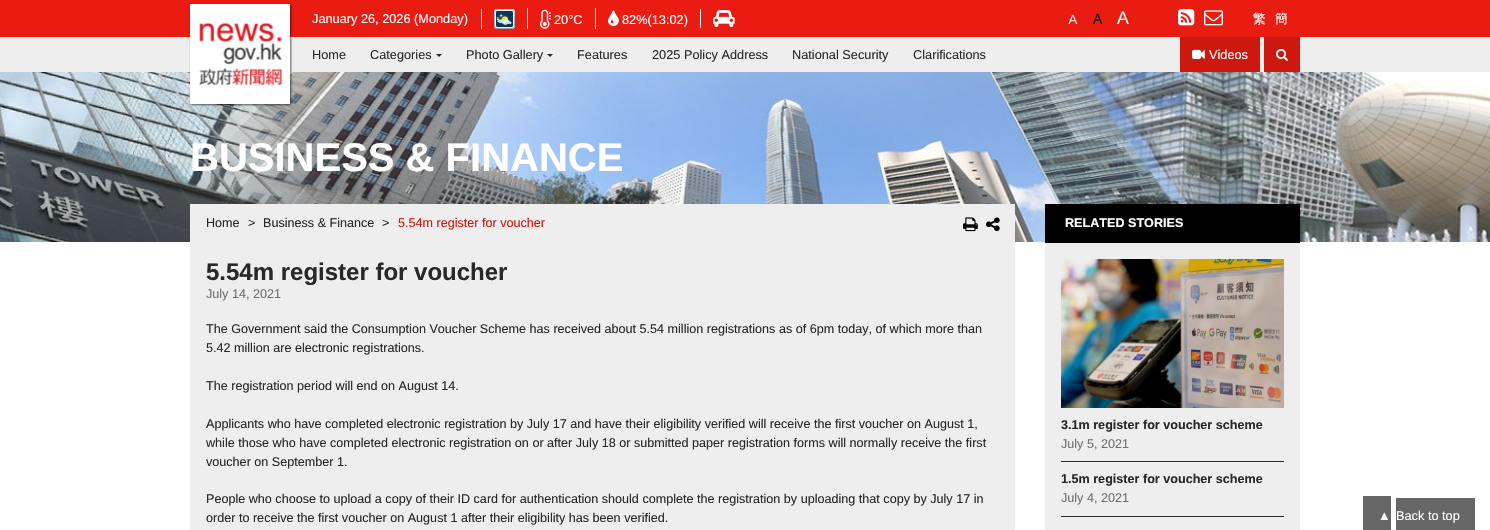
static SkFont makeFont(const char* family, int weight, float size, bool italic = false) {
  SkFontStyle style(weight, SkFontStyle::kNormal_Width,
    italic ? SkFontStyle::kItalic_Slant : SkFontStyle::kUpright_Slant);
  SkFont result(fontMgr->matchFamilyStyle(family, style), size);
  result.setSubpixel(true);
  return result;
}

static void text(SkCanvas* c, const char* s, float x, float y, const SkFont& font, SkColor color) {
  SkPaint ink(SkColor4f::FromColor(color));
  ink.setAntiAlias(true);
  c->drawString(s, x, y, font, ink);
}

static void box(SkCanvas* c, float l, float t, float r, float b, SkColor color) {
  SkPaint ink(SkColor4f::FromColor(color));
  ink.setAntiAlias(true);
  c->drawRect(SkRect::MakeLTRB(l, t, r, b), ink);
}

static void picture(SkCanvas* c, const char* path, float l, float t, float r, float b) {
  auto image = SkImages::DeferredFromEncodedData(SkData::MakeFromFileName(path));
  c->drawImageRect(image, SkRect::MakeLTRB(l, t, r, b), SkSamplingOptions());
}

void draw(SkCanvas* c) {
  SkPaint paint;
  paint.setAntiAlias(true);
  c->clear(0xffffffff);
  box(c, 0, 0, 1490, 37, 0xffea1b10);
  box(c, 0, 37, 1490, 72, 0xffeeeeee);
  picture(c, "img_13.png", 0, 72, 1490, 242);
  paint.setColor(0x99000000);
  paint.setMaskFilter(SkMaskFilter::MakeBlur(kNormal_SkBlurStyle, 1));
  c->drawRect(SkRect::MakeLTRB(191, 5, 291, 105), paint);
  paint.setMaskFilter(nullptr);
  box(c, 190, 4, 290, 104, 0xffffffff);
  picture(c, "img_01.png", 199, 22, 282, 86);
  SkFont face1 = makeFont("Liberation Sans", 400, 12.75f);
  text(c, "January 26, 2026 (Monday)", 312, 23, face1, 0xffffffff);
  box(c, 481, 9, 482, 29, 0xffffffff);
  picture(c, "img_02.png", 494, 9, 515, 29);
  box(c, 527, 8, 528, 29, 0xffffffff);
  picture(c, "img_03.png", 540, 9, 551, 29);
  text(c, "20°C", 554, 24, face1, 0xffffffff);
  box(c, 595, 8, 596, 29, 0xffffffff);
  picture(c, "img_04.png", 608, 10, 619, 26);
  text(c, "82%(13:02)", 622, 24, face1, 0xffffffff);
  box(c, 700, 9, 701, 28, 0xffffffff);
  picture(c, "img_05.png", 713, 10, 735, 27);
  picture(c, "img_06.png", 1068, 14, 1078, 24);
  picture(c, "img_07.png", 1093, 13, 1103, 24);
  picture(c, "img_08.png", 1117, 11, 1129, 24);
  picture(c, "img_09.png", 1178, 9, 1195, 26);
  picture(c, "img_10.png", 1204, 10, 1223, 26);
  SkFont face2 = makeFont("WenQuanYi Zen Hei", 500, 12.75f);
  text(c, "繁", 1253, 23, face2, 0xffffffff);
  text(c, "簡", 1275, 23, face2, 0xffffffff);
  text(c, "Home", 312, 59, face1, 0xff282828);
  text(c, "Categories", 370, 59, face1, 0xff282828);
  paint.setColor(0xff282828);
  c->drawPath(SkPathBuilder().moveTo(436, 54).lineTo(442, 54).lineTo(439, 57).close().detach(), paint);
  text(c, "Photo Gallery", 466, 59, face1, 0xff282828);
  c->drawPath(SkPathBuilder().moveTo(547, 54).lineTo(553, 54).lineTo(550, 57).close().detach(), paint);
  text(c, "Features", 577, 59, face1, 0xff282828);
  text(c, "2025 Policy Address", 652, 59, face1, 0xff282828);
  text(c, "National Security", 792, 59, face1, 0xff282828);
  text(c, "Clarifications", 913, 59, face1, 0xff282828);
  box(c, 1180, 37, 1260, 72, 0xffcc180e);
  picture(c, "img_11.png", 1192, 49, 1205, 59);
  text(c, "Videos", 1209, 59, face1, 0xffffffff);
  box(c, 1264, 37, 1300, 72, 0xffcc180e);
  picture(c, "img_12.png", 1276, 49, 1288, 61);
  SkFont face3 = makeFont("Liberation Sans", 700, 40);
  text(c, "BUSINESS & FINANCE", 190, 171, face3, 0xffffffff);
  box(c, 190, 204, 1015, 530, 0xffeeeeee);
  SkFont face4 = makeFont("Liberation Sans", 400, 12.6f);
  text(c, "Home", 206, 227, face4, 0xff282828);
  text(c, ">", 248, 227, face4, 0xff282828);
  text(c, "Business & Finance", 263, 227, face4, 0xff282828);
  text(c, ">", 382, 227, face4, 0xff282828);
  text(c, "5.54m register for voucher", 398, 227, face4, 0xffcc180e);
  picture(c, "img_14.png", 963, 217, 978, 232);
  picture(c, "img_15.png", 986, 217, 1000, 232);
  SkFont face5 = makeFont("Liberation Sans", 700, 24);
  text(c, "5.54m register for voucher", 206, 280, face5, 0xff282828);
  text(c, "July 14, 2021", 206, 298, face4, 0xff707070);
  text(c, "The Government said the Consumption Voucher Scheme has received about 5.54 million registrations as of 6pm today, of which more than", 206, 333, face4, 0xff282828);
  text(c, "5.42 million are electronic registrations.", 206, 352, face4, 0xff282828);
  text(c, "The registration period will end on August 14.", 206, 390, face4, 0xff282828);
  text(c, "Applicants who have completed electronic registration by July 17 and have their eligibility verified will receive the first voucher on August 1,", 206, 428, face4, 0xff282828);
  text(c, "while those who have completed electronic registration on or after July 18 or submitted paper registration forms will normally receive the first", 206, 447, face4, 0xff282828);
  text(c, "voucher on September 1.", 206, 466, face4, 0xff282828);
  text(c, "People who choose to upload a copy of their ID card for authentication should complete the registration by uploading that copy by July 17 in", 206, 503, face4, 0xff282828);
  text(c, "order to receive the first voucher on August 1 after their eligibility has been verified.", 206, 522, face4, 0xff282828);
  box(c, 1045, 243, 1300, 530, 0xffeeeeee);
  box(c, 1045, 204, 1300, 243, 0xff000000);
  SkFont face6 = makeFont("Liberation Sans", 700, 12.6f);
  text(c, "RELATED STORIES", 1065, 227, face6, 0xffffffff);
  picture(c, "img_16.png", 1061, 259, 1284, 408);
  text(c, "3.1m register for voucher scheme", 1061, 429, face6, 0xff282828);
  text(c, "July 5, 2021", 1061, 448, face4, 0xff707070);
  box(c, 1061, 461, 1284, 462, 0xff282828);
  text(c, "1.5m register for voucher scheme", 1061, 483, face6, 0xff282828);
  text(c, "July 4, 2021", 1061, 502, face4, 0xff707070);
  box(c, 1061, 516, 1284, 517, 0xff282828);
  box(c, 1363, 496, 1391, 530, 0xff666666);
  box(c, 1396, 498, 1475, 530, 0xff666666);
  text(c, "▲", 1378, 520, face1, 0xffffffff);
  text(c, "Back to top", 1396, 520, face1, 0xffffffff);
}
